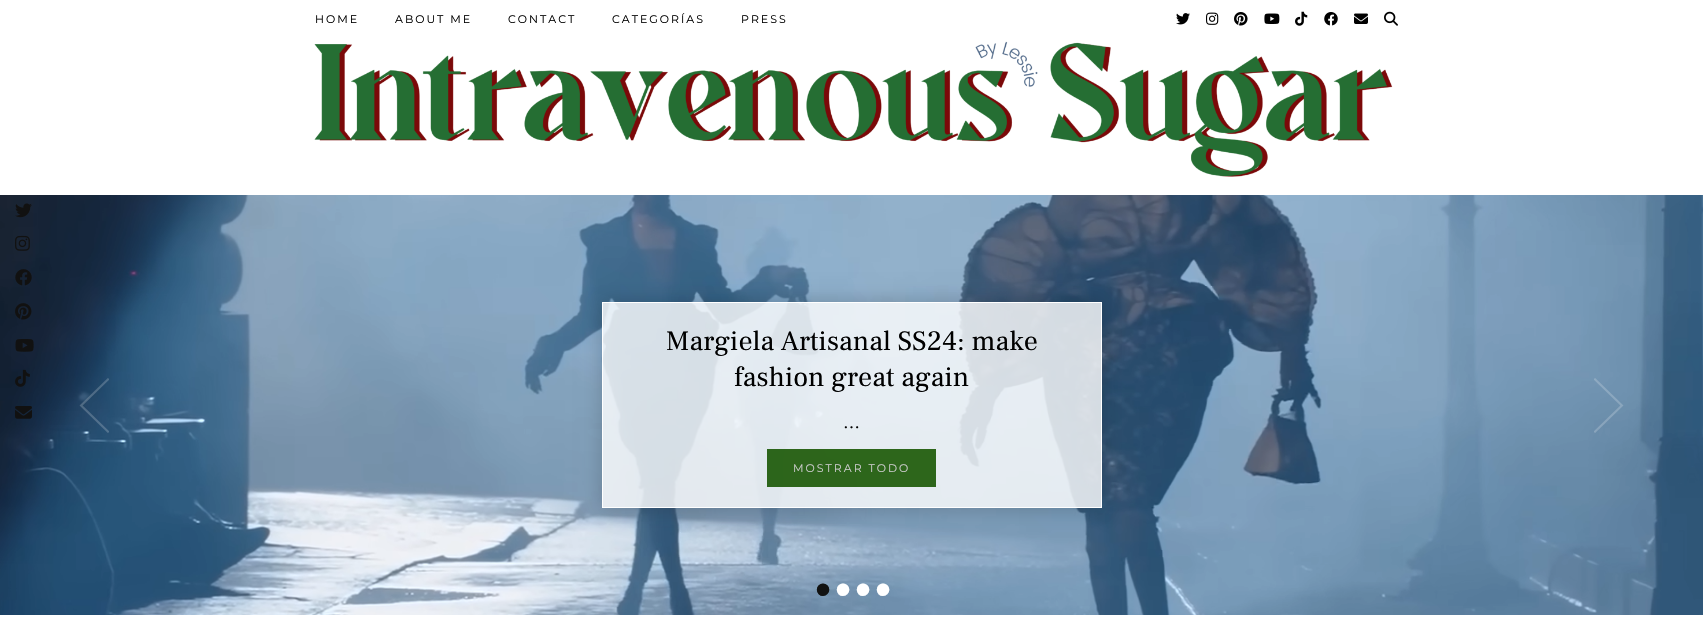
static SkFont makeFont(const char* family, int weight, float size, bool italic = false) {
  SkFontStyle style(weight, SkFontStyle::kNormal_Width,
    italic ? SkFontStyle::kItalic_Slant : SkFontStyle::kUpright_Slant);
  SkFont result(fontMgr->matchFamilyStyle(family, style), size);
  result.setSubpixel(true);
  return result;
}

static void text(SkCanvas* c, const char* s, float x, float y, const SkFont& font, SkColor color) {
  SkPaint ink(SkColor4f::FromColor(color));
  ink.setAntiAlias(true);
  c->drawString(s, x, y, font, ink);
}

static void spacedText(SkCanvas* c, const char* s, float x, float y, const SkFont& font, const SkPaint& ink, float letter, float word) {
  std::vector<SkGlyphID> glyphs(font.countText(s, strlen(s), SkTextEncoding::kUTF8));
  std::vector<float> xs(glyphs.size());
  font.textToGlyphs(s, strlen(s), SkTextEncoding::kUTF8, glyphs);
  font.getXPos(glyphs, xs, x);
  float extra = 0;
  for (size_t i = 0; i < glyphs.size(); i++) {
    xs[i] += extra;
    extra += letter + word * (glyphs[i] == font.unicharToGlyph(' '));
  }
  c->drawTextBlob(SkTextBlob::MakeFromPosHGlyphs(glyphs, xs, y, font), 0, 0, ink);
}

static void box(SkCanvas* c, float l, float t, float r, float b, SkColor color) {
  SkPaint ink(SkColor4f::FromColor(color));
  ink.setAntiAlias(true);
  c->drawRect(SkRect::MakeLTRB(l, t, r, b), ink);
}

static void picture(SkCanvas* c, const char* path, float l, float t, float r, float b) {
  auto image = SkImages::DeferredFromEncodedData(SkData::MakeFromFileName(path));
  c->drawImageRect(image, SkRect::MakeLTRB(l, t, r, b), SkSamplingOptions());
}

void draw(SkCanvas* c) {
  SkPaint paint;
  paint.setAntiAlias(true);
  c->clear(0xffffffff);
  SkFont face1 = makeFont("Montserrat", 100, 11);
  paint.setColor(0xff000000);
  spacedText(c, "HOME", 315, 23, face1, paint, 2, 0);
  spacedText(c, "ABOUT ME", 395, 23, face1, paint, 2, 0);
  spacedText(c, "CONTACT", 508, 23, face1, paint, 2, 0);
  spacedText(c, "CATEGORÍAS", 612, 23, face1, paint, 2, 0);
  spacedText(c, "PRESS", 741, 23, face1, paint, 2, 0);
  picture(c, "img_01.png", 1176, 13, 1190, 25);
  picture(c, "img_02.png", 1206, 12, 1219, 25);
  picture(c, "img_03.png", 1234, 12, 1248, 26);
  picture(c, "img_04.png", 1264, 13, 1280, 24);
  picture(c, "img_05.png", 1295, 11, 1308, 26);
  picture(c, "img_06.png", 1324, 12, 1338, 26);
  picture(c, "img_07.png", 1354, 13, 1368, 24);
  picture(c, "img_08.png", 1384, 11, 1398, 26);
  picture(c, "img_09.png", 314, 41, 1393, 177);
  picture(c, "img_18.png", 0, 195, 1703, 615);
  picture(c, "img_10.png", 15, 203, 32, 218);
  picture(c, "img_11.png", 15, 235, 30, 251);
  picture(c, "img_12.png", 15, 269, 32, 286);
  picture(c, "img_13.png", 15, 303, 32, 320);
  picture(c, "img_14.png", 15, 339, 34, 352);
  picture(c, "img_15.png", 15, 369, 30, 387);
  picture(c, "img_16.png", 15, 406, 32, 419);
  picture(c, "img_17.png", 79, 378, 109, 433);
  c->save();
  c->clipPath(SkPathBuilder(SkPathFillType::kEvenOdd).moveTo(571, 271).lineTo(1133, 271).lineTo(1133, 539).lineTo(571, 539).close().moveTo(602, 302).lineTo(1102, 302).lineTo(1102, 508).lineTo(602, 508).close().detach(), true);
  paint.setColor(0x33000000);
  paint.setMaskFilter(SkMaskFilter::MakeBlur(kNormal_SkBlurStyle, 10));
  c->drawRect(SkRect::MakeLTRB(602, 302, 1102, 508), paint);
  paint.setMaskFilter(nullptr);
  c->restore();
  paint.setColor(0xccffffff);
  c->drawRect(SkRect::MakeLTRB(602.5f, 302.5f, 1101.5f, 507.5f), paint);
  paint.setStyle(SkPaint::kStroke_Style);
  paint.setStrokeWidth(1);
  paint.setColor(0xffffffff);
  c->drawRect(SkRect::MakeLTRB(602.5f, 302.5f, 1101.5f, 507.5f), paint);
  SkFont face2 = makeFont("Frank Ruhl Libre", 400, 28);
  text(c, "Margiela Artisanal SS24: make", 666, 350, face2, 0xff000000);
  text(c, "fashion great again", 734, 386, face2, 0xff000000);
  SkFont face3 = makeFont("Century Gothic", 400, 17);
  text(c, "…", 843, 428, face3, 0xff000000);
  box(c, 767, 449, 936, 487, 0xe6185603);
  paint.setStyle(SkPaint::kFill_Style);
  paint.setColor(0xffcccccd);
  spacedText(c, "MOSTRAR TODO", 793, 472, face1, paint, 2, 0);
  picture(c, "img_19.png", 1594, 378, 1624, 433);
  SkFont face4 = makeFont("Liberation Sans", 400, 46);
  text(c, "•", 815, 605, face4, 0xff111111);
  text(c, "•", 835, 605, face4, 0xffffffff);
  text(c, "•", 855, 605, face4, 0xffffffff);
  text(c, "•", 875, 605, face4, 0xffffffff);
}
